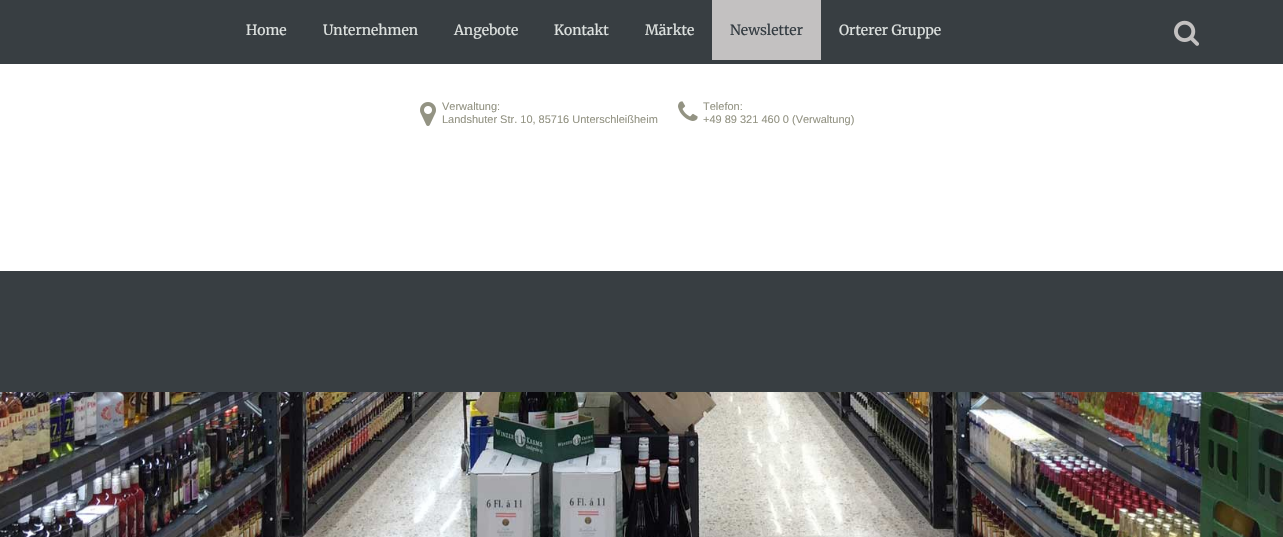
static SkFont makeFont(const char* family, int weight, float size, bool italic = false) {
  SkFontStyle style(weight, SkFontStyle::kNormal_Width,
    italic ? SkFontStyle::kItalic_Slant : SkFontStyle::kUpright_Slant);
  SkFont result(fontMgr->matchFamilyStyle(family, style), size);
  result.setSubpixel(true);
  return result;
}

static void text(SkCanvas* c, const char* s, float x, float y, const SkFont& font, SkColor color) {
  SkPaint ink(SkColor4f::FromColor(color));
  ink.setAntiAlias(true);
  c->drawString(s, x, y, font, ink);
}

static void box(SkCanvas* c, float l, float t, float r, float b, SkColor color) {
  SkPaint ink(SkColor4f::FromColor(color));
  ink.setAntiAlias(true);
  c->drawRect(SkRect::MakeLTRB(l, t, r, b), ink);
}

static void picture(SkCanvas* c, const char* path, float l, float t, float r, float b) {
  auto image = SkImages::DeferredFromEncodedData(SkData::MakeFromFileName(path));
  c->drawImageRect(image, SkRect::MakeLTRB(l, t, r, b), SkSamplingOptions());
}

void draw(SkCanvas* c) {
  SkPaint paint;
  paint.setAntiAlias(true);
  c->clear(0xffffffff);
  box(c, 0, 0, 1283, 64, 0xff383e42);
  SkFont face1 = makeFont("Merriweather", 300, 14);
  text(c, "Home", 246, 35, face1, 0xffdde1df);
  text(c, "Unternehmen", 323, 35, face1, 0xffdde1df);
  text(c, "Angebote", 454, 35, face1, 0xffdde1df);
  text(c, "Kontakt", 554, 35, face1, 0xffdde1df);
  text(c, "Märkte", 645, 35, face1, 0xffdde1df);
  box(c, 712, 0, 821, 60, 0xffc3c1c1);
  text(c, "Newsletter", 730, 35, face1, 0xff333b41);
  text(c, "Orterer Gruppe", 839, 35, face1, 0xffdde1df);
  picture(c, "img_01.png", 1174, 20, 1199, 46);
  picture(c, "img_02.png", 420, 102, 436, 126);
  SkFont face2 = makeFont("Liberation Sans", 400, 11);
  text(c, "Verwaltung:", 442, 110, face2, 0xff939383);
  text(c, "Landshuter Str. 10, 85716 Unterschleißheim", 442, 123, face2, 0xff939383);
  picture(c, "img_03.png", 678, 101, 698, 121);
  text(c, "Telefon:", 703, 110, face2, 0xff939383);
  text(c, "+49 89 321 460 0 (Verwaltung)", 703, 123, face2, 0xff939383);
  box(c, 0, 271, 1283, 392, 0xff383e42);
  picture(c, "img_04.png", 0, 392, 1283, 537);
}
